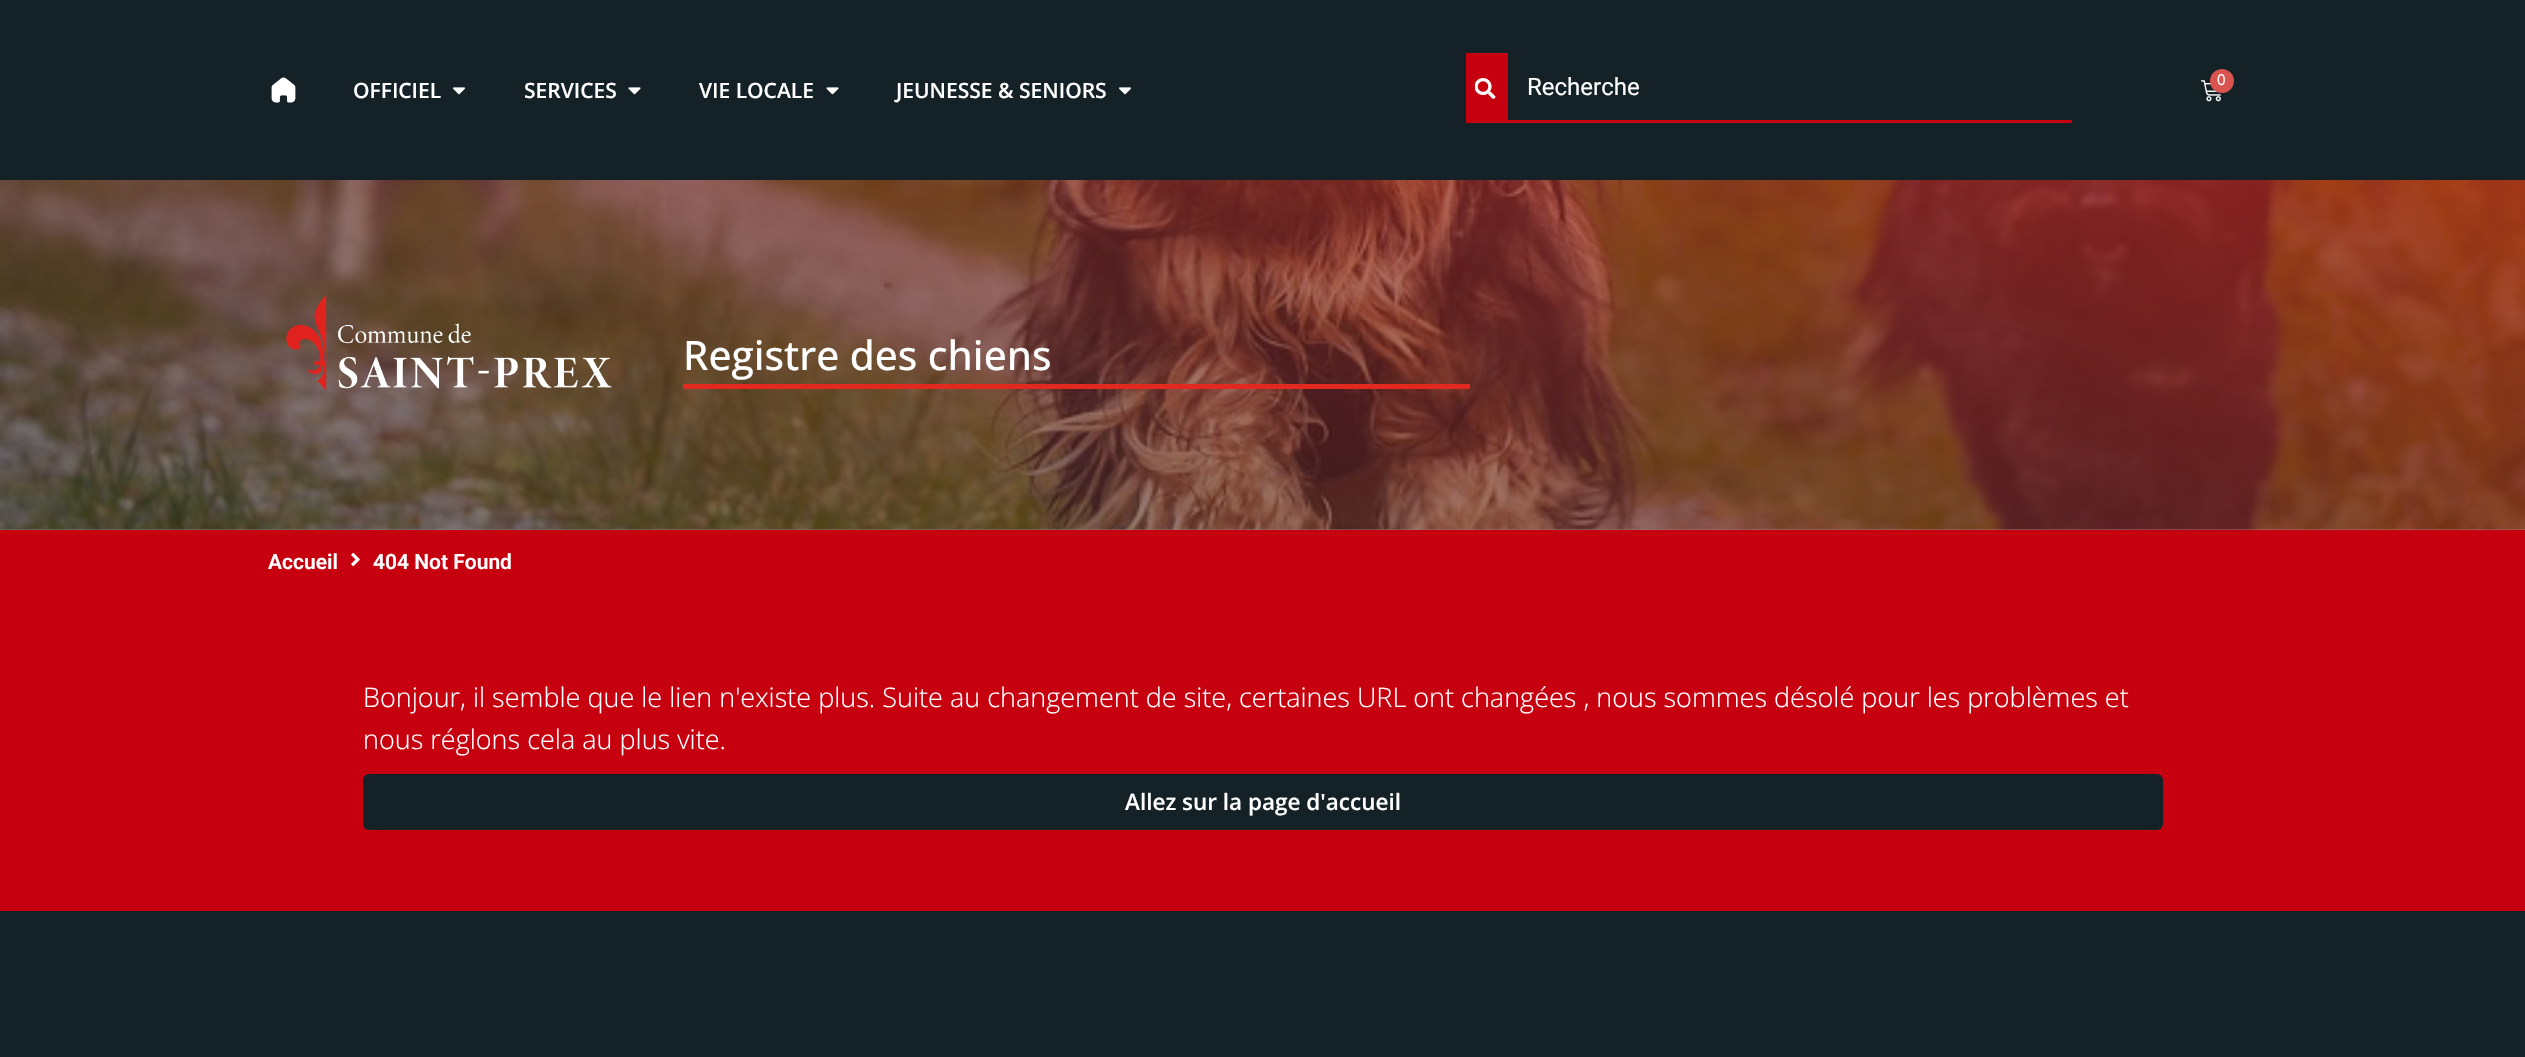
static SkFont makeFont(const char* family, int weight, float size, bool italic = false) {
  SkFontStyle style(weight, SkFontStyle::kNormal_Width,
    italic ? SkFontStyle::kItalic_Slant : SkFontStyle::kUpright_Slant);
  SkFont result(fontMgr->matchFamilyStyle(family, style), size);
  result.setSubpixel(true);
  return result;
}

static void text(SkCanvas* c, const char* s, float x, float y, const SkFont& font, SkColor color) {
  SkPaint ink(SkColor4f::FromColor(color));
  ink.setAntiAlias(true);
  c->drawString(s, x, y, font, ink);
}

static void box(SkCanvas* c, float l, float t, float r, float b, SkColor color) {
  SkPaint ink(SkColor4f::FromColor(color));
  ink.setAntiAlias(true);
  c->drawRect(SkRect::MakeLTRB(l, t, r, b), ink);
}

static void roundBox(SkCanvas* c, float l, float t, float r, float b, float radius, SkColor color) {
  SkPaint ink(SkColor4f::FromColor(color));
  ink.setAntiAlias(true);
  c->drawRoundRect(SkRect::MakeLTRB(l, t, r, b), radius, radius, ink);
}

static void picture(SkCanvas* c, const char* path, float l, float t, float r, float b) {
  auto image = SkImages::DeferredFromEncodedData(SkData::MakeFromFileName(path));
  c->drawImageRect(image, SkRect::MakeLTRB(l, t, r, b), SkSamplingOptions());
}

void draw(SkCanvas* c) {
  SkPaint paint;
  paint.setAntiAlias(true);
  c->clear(0xffffffff);
  picture(c, "img_01.png", 0, 180, 2525, 530);
  box(c, 0, 0, 2525, 180, 0xff142127);
  picture(c, "img_02.png", 271, 77, 296, 103);
  SkFont face1 = makeFont("Open Sans", 600, 21);
  text(c, "OFFICIEL", 353, 98, face1, 0xffffffff);
  picture(c, "img_03.png", 452, 87, 466, 95);
  text(c, "SERVICES", 524, 98, face1, 0xffffffff);
  picture(c, "img_04.png", 628, 87, 641, 95);
  text(c, "VIE LOCALE", 699, 98, face1, 0xffffffff);
  picture(c, "img_04.png", 826, 87, 839, 95);
  text(c, "JEUNESSE & SENIORS", 896, 98, face1, 0xffffffff);
  picture(c, "img_03.png", 1118, 87, 1132, 95);
  box(c, 1466, 53, 1508, 123, 0xffc6000e);
  picture(c, "img_05.png", 1475, 78, 1496, 99);
  box(c, 1508, 120, 2072, 123, 0xffc6000e);
  SkFont face2 = makeFont("Roboto", 400, 24);
  text(c, "Recherche", 1527, 95, face2, 0xffffffff);
  picture(c, "img_06.png", 2201, 80, 2221, 102);
  paint.setColor(0xffd9534f);
  c->drawCircle(2222, 81, 12, paint);
  SkFont face3 = makeFont("Open Sans", 400, 15);
  text(c, "0", 2217, 85, face3, 0xffffffff);
  {
    const SkColor colors[] = {0xb3e2291f, 0x8c142127};
    const float stops[] = {0, 1};
    const SkPoint ends[] = {{1445, -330}, {1081, 860}};
    paint.setShader(SkGradientShader::MakeLinear(ends, colors, stops, 2, SkTileMode::kClamp));
    paint.setAlpha(255);
  }
  c->drawRect(SkRect::MakeLTRB(0, 180, 2525, 530), paint);
  picture(c, "img_07.png", 286, 294, 612, 391);
  SkFont face4 = makeFont("Open Sans", 500, 40.5f);
  text(c, "Registre des chiens", 683, 370, face4, 0xffffffff);
  box(c, 683, 384, 1470, 389, 0xffe2291f);
  box(c, 0, 530, 2525, 911, 0xffc6000e);
  SkFont face5 = makeFont("Roboto", 600, 21);
  text(c, "Accueil", 268, 569, face5, 0xffffffff);
  picture(c, "img_08.png", 351, 552, 360, 566);
  text(c, "404 Not Found", 373, 569, face5, 0xffffffff);
  SkFont face6 = makeFont("Open Sans", 300, 27);
  text(c, "Bonjour, il semble que le lien n'existe plus. Suite au changement de site, certaines URL ont changées , nous sommes désolé pour les problèmes et", 363, 707, face6, 0xffffffff);
  text(c, "nous réglons cela au plus vite.", 363, 749, face6, 0xffffffff);
  roundBox(c, 363, 774, 2163, 830, 6, 0xff142127);
  SkFont face7 = makeFont("Open Sans", 600, 22.5f);
  text(c, "Allez sur la page d'accueil", 1125, 810, face7, 0xffffffff);
  box(c, 0, 911, 2525, 1057, 0xff142127);
}
